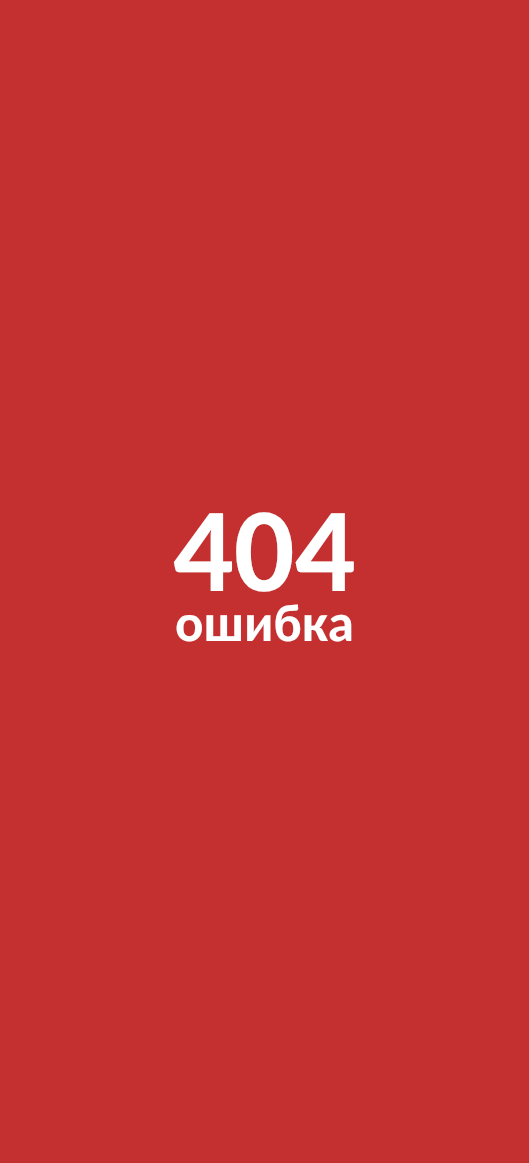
static SkFont makeFont(const char* family, int weight, float size, bool italic = false) {
  SkFontStyle style(weight, SkFontStyle::kNormal_Width,
    italic ? SkFontStyle::kItalic_Slant : SkFontStyle::kUpright_Slant);
  SkFont result(fontMgr->matchFamilyStyle(family, style), size);
  result.setSubpixel(true);
  return result;
}

static void text(SkCanvas* c, const char* s, float x, float y, const SkFont& font, SkColor color) {
  SkPaint ink(SkColor4f::FromColor(color));
  ink.setAntiAlias(true);
  c->drawString(s, x, y, font, ink);
}

void draw(SkCanvas* c) {
  SkPaint paint;
  paint.setAntiAlias(true);
  c->clear(0xffc43030);
  SkFont face1 = makeFont("Carlito", 700, 120);
  text(c, "404", 173, 591, face1, 0xffffffff);
  SkFont face2 = makeFont("Carlito", 700, 53);
  text(c, "ошибка", 175, 641, face2, 0xffffffff);
}
